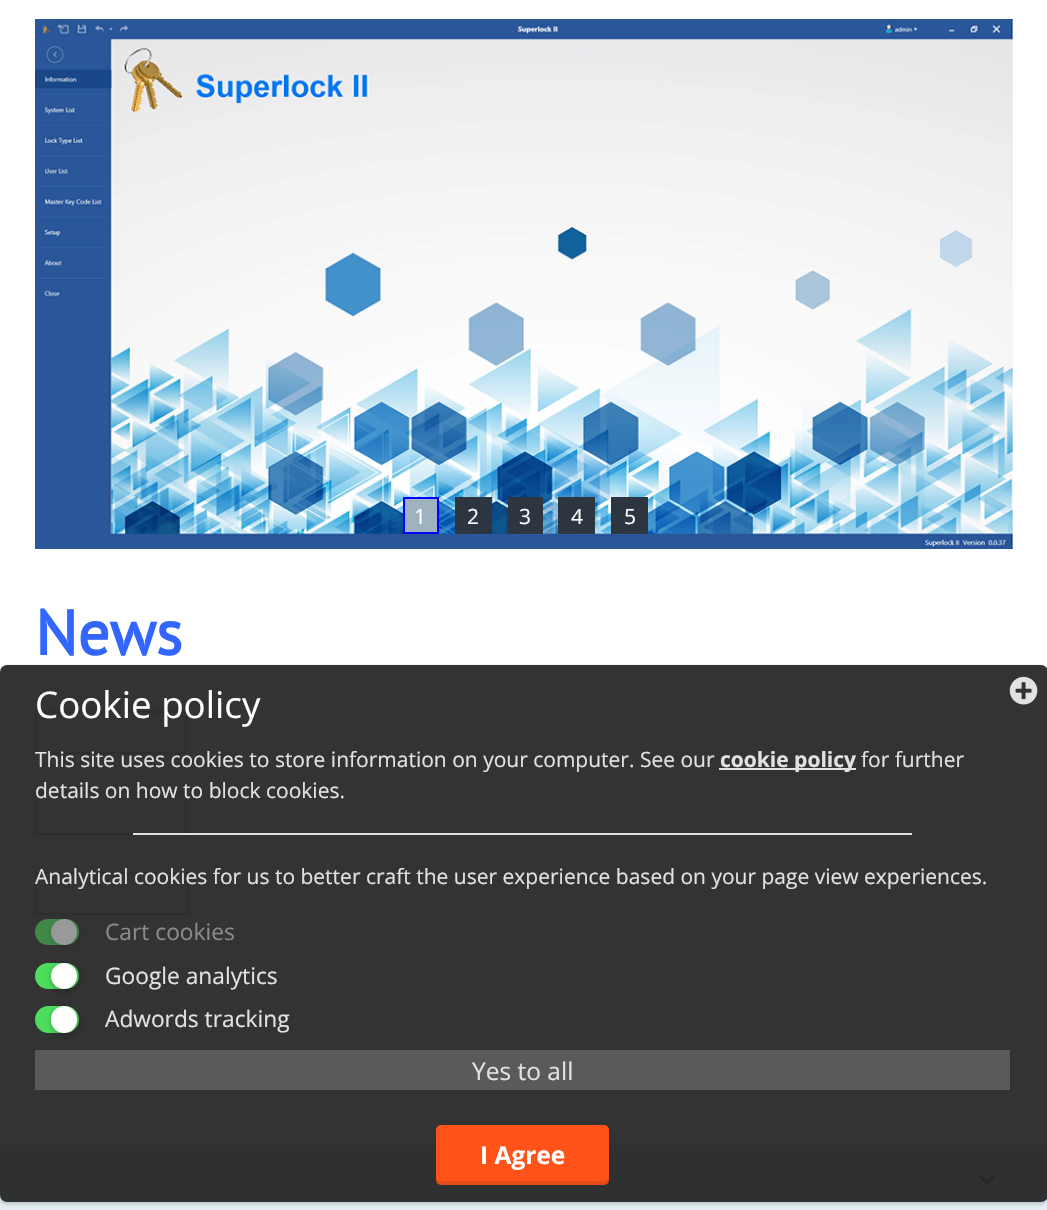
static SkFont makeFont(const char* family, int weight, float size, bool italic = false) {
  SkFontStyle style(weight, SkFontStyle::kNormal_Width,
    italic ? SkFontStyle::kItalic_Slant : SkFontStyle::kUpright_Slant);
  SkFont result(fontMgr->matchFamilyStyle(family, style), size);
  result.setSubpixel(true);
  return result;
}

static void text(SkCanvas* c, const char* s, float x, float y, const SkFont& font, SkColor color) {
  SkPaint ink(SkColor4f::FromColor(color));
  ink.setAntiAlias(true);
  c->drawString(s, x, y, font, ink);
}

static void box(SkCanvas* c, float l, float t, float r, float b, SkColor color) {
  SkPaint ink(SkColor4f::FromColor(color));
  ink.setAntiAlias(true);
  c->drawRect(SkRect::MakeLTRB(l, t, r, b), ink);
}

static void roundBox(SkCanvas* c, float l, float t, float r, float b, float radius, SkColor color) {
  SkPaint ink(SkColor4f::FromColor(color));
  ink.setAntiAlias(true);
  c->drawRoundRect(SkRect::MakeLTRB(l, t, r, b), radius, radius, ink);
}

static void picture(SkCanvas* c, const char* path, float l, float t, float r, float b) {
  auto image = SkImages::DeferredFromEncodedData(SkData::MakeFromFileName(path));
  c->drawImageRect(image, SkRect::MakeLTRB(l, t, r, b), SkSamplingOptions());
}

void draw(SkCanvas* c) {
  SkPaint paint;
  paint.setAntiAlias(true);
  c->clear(0xffffffff);
  picture(c, "img_01.png", 35, 19, 1013, 549);
  paint.setColor(0xff9fb2c0);
  c->drawRect(SkRect::MakeLTRB(404, 498, 438, 533), paint);
  paint.setStyle(SkPaint::kStroke_Style);
  paint.setStrokeWidth(2);
  paint.setColor(0xff0000ff);
  c->drawRect(SkRect::MakeLTRB(404, 498, 438, 533), paint);
  SkFont face1 = makeFont("Open Sans", 400, 21);
  text(c, "1", 414, 524, face1, 0xffffffff);
  box(c, 455, 497, 492, 534, 0xff2d3540);
  text(c, "2", 467, 524, face1, 0xffffffff);
  box(c, 508, 497, 543, 534, 0xff2d3540);
  text(c, "3", 519, 524, face1, 0xffffffff);
  box(c, 558, 497, 595, 534, 0xff2d3540);
  text(c, "4", 571, 524, face1, 0xffffffff);
  box(c, 611, 497, 648, 534, 0xff2d3540);
  text(c, "5", 624, 524, face1, 0xffffffff);
  SkFont face2 = makeFont("PT Sans", 700, 63);
  text(c, "News", 35, 655, face2, 0xff3366ff);
  paint.setColor(0xffdce3ea);
  c->drawRect(SkRect::MakeLTRB(36, 712, 186, 753), paint);
  c->drawRect(SkRect::MakeLTRB(36, 792, 186, 834), paint);
  c->drawRect(SkRect::MakeLTRB(36, 873, 188, 914), paint);
  box(c, 0, 1145, 1047, 1210, 0xffe6eff4);
  picture(c, "img_02.png", 978, 1174, 995, 1185);
  c->save();
  c->clipPath(SkPathBuilder(SkPathFillType::kEvenOdd).moveTo(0, 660).lineTo(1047, 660).lineTo(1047, 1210).lineTo(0, 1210).close().moveTo(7, 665).lineTo(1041, 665).cubicTo(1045, 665, 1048, 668, 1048, 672).lineTo(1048, 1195).cubicTo(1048, 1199, 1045, 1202, 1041, 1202).lineTo(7, 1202).cubicTo(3, 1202, 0, 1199, 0, 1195).lineTo(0, 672).cubicTo(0, 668, 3, 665, 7, 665).close().detach(), true);
  paint.setStyle(SkPaint::kFill_Style);
  paint.setColor(0x33000000);
  paint.setMaskFilter(SkMaskFilter::MakeBlur(kNormal_SkBlurStyle, 2));
  c->drawRoundRect(SkRect::MakeLTRB(0, 667, 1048, 1204), 7, 7, paint);
  paint.setMaskFilter(nullptr);
  c->restore();
  roundBox(c, 0, 665, 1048, 1202, 7, 0xcc000000);
  SkFont face3 = makeFont("Open Sans", 400, 36.75f);
  text(c, "Cookie policy", 35, 718, face3, 0xffffffff);
  text(c, "This site uses cookies to store information on your computer. See our", 35, 767, face1, 0xffe2e2e2);
  box(c, 719, 768, 856, 770, 0xffe2e2e2);
  SkFont face4 = makeFont("Open Sans", 700, 21);
  text(c, "cookie policy", 720, 767, face4, 0xffe2e2e2);
  text(c, "for further", 861, 767, face1, 0xffe2e2e2);
  text(c, "details on how to block cookies.", 35, 798, face1, 0xffe2e2e2);
  box(c, 133, 833, 912, 835, 0xffe2e2e2);
  text(c, "Analytical cookies for us to better craft the user experience based on your page view experiences.", 35, 884, face1, 0xffe2e2e2);
  roundBox(c, 35, 919, 79, 945, 13, 0xff408949);
  paint.setColor(0x1f000000);
  paint.setMaskFilter(SkMaskFilter::MakeBlur(kNormal_SkBlurStyle, 3.5f));
  c->drawRoundRect(SkRect::MakeLTRB(51, 921, 79, 949), 14, 14, paint);
  paint.setMaskFilter(nullptr);
  paint.setColor(0xff999999);
  c->drawCircle(64, 932, 13, paint);
  SkFont face5 = makeFont("Open Sans", 400, 22.75f);
  text(c, "Cart cookies", 105, 940, face5, 0xff8b8b8b);
  roundBox(c, 35, 963, 79, 989, 13, 0xff4dde5e);
  paint.setColor(0x40000000);
  paint.setMaskFilter(SkMaskFilter::MakeBlur(kNormal_SkBlurStyle, 3.5f));
  c->drawRoundRect(SkRect::MakeLTRB(51, 964, 79, 992), 14, 14, paint);
  paint.setMaskFilter(nullptr);
  paint.setColor(0xffffffff);
  c->drawCircle(64, 976, 13, paint);
  text(c, "Google analytics", 105, 984, face5, 0xffe2e2e2);
  roundBox(c, 35, 1006, 79, 1033, 13.5f, 0xff4dde5e);
  paint.setColor(0x40000000);
  paint.setMaskFilter(SkMaskFilter::MakeBlur(kNormal_SkBlurStyle, 3.5f));
  c->drawRoundRect(SkRect::MakeLTRB(51, 1008, 79, 1036), 14, 14, paint);
  paint.setMaskFilter(nullptr);
  roundBox(c, 51, 1006, 77, 1033, 13, 0xffffffff);
  text(c, "Adwords tracking", 105, 1027, face5, 0xffe2e2e2);
  box(c, 35, 1050, 1010, 1090, 0xff5a5a5a);
  SkFont face6 = makeFont("Open Sans", 400, 24.5f);
  text(c, "Yes to all", 472, 1080, face6, 0xffe2e2e2);
  roundBox(c, 436, 1125, 609, 1185, 5, 0xffff5319);
  paint.setColor(0x1a000000);
  c->drawPath(SkPathBuilder().moveTo(436, 1176).lineTo(436, 1180).cubicTo(436, 1183, 438, 1185, 441, 1185).lineTo(604, 1185).cubicTo(607, 1185, 609, 1183, 609, 1180).lineTo(609, 1176).cubicTo(609, 1179, 607, 1181, 604, 1181).lineTo(441, 1181).cubicTo(438, 1181, 436, 1179, 436, 1176).close().detach(), paint);
  SkFont face7 = makeFont("Open Sans", 700, 24.5f);
  text(c, "I Agree", 480, 1164, face7, 0xffffffff);
  picture(c, "img_03.png", 1009, 676, 1038, 705);
}
